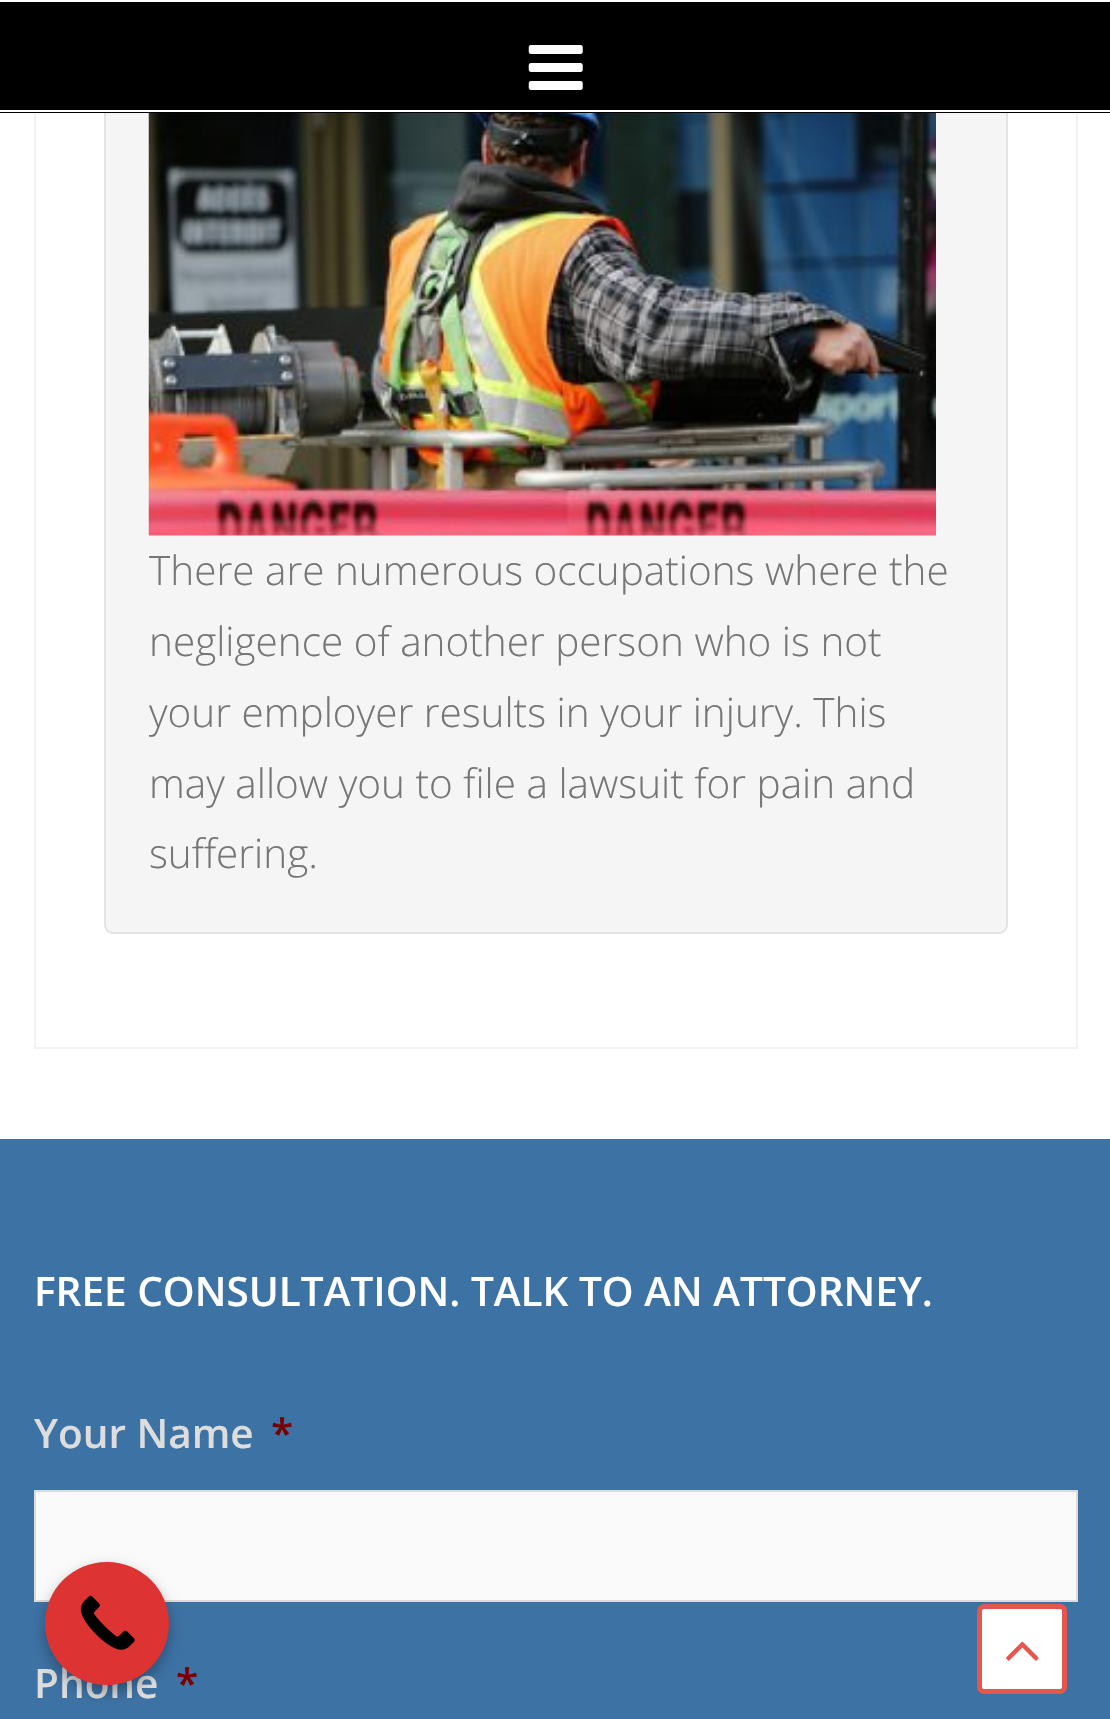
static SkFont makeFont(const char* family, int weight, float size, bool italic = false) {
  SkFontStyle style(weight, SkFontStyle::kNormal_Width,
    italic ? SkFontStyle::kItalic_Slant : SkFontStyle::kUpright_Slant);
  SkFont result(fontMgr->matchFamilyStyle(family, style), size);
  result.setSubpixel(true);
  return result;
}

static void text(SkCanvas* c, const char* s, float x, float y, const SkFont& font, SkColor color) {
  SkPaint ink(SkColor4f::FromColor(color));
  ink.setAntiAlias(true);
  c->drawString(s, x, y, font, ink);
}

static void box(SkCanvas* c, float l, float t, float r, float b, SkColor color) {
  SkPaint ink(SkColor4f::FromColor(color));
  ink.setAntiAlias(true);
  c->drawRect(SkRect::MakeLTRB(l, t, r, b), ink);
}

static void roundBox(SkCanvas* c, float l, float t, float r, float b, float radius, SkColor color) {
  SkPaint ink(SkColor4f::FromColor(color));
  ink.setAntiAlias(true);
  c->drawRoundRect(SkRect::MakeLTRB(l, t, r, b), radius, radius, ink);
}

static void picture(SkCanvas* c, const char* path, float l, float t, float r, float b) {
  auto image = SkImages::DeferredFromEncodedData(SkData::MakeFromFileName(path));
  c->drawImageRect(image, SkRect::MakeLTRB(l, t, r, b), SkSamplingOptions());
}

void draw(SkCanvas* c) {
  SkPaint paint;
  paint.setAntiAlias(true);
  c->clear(0xffffffff);
  paint.setStyle(SkPaint::kStroke_Style);
  paint.setStrokeWidth(2);
  paint.setColor(0xfff2f2f2);
  c->drawRect(SkRect::MakeLTRB(35, -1, 1077, 1048), paint);
  paint.setStyle(SkPaint::kFill_Style);
  paint.setColor(0xfff5f5f5);
  c->drawRoundRect(SkRect::MakeLTRB(105, -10, 1007, 933), 8, 8, paint);
  paint.setStyle(SkPaint::kStroke_Style);
  paint.setColor(0xffe3e3e3);
  c->drawRoundRect(SkRect::MakeLTRB(105, -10, 1007, 933), 8, 8, paint);
  box(c, 0, 2, 1110, 113, 0xff000000);
  box(c, 34, 0, 1078, 2, 0xffffffff);
  box(c, 0, 110, 1110, 112, 0xffffffff);
  picture(c, "img_01.png", 528, 45, 583, 90);
  picture(c, "img_02.png", 148, 113, 936, 536);
  SkFont face1 = makeFont("Open Sans", 300, 40.5f);
  text(c, "There are numerous occupations where the", 149, 585, face1, 0xff767676);
  text(c, "negligence of another person who is not", 149, 656, face1, 0xff767676);
  c->save();
  c->clipRect(SkRect::MakeLTRB(149, 92, 963, 889));
  text(c, "your employer results in your injury. This", 149, 727, face1, 0xff767676);
  c->restore();
  text(c, "may allow you to file a lawsuit for pain and", 149, 798, face1, 0xff767676);
  text(c, "suffering.", 149, 868, face1, 0xff767676);
  box(c, 0, 1139, 1110, 1719, 0xff3d72a4);
  SkFont face2 = makeFont("Open Sans", 600, 40.5f);
  text(c, "FREE CONSULTATION. TALK TO AN ATTORNEY.", 34, 1306, face2, 0xffffffff);
  text(c, "Your Name", 34, 1448, face2, 0xffdddddd);
  text(c, "*", 271, 1448, face2, 0xff790000);
  paint.setStyle(SkPaint::kFill_Style);
  paint.setColor(0xfffafafa);
  c->drawRect(SkRect::MakeLTRB(35, 1491, 1077, 1601), paint);
  paint.setStyle(SkPaint::kStroke_Style);
  paint.setColor(0xffdbdbdb);
  c->drawRect(SkRect::MakeLTRB(35, 1491, 1077, 1601), paint);
  text(c, "Phone", 34, 1698, face2, 0xffdddddd);
  text(c, "*", 176, 1698, face2, 0xff790000);
  paint.setStyle(SkPaint::kFill_Style);
  paint.setColor(0xffffffff);
  c->drawRoundRect(SkRect::MakeLTRB(979.5f, 1606.5f, 1064.5f, 1691.5f), 4.5f, 4.5f, paint);
  paint.setStyle(SkPaint::kStroke_Style);
  paint.setStrokeWidth(5);
  paint.setColor(0xffe8554e);
  c->drawRoundRect(SkRect::MakeLTRB(979.5f, 1606.5f, 1064.5f, 1691.5f), 4.5f, 4.5f, paint);
  picture(c, "img_03.png", 1006, 1641, 1039, 1661);
  paint.setStyle(SkPaint::kFill_Style);
  paint.setColor(0x4d000000);
  paint.setMaskFilter(SkMaskFilter::MakeBlur(kNormal_SkBlurStyle, 7));
  c->drawRoundRect(SkRect::MakeLTRB(45, 1568, 169, 1692), 62, 62, paint);
  paint.setMaskFilter(nullptr);
  roundBox(c, 45, 1562, 169, 1685, 61.5f, 0xffdd3333);
  picture(c, "img_04.png", 80, 1595, 135, 1650);
}
